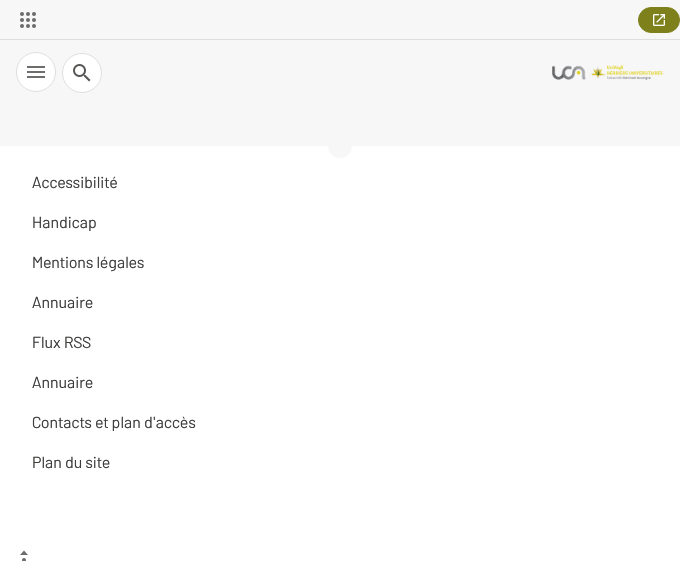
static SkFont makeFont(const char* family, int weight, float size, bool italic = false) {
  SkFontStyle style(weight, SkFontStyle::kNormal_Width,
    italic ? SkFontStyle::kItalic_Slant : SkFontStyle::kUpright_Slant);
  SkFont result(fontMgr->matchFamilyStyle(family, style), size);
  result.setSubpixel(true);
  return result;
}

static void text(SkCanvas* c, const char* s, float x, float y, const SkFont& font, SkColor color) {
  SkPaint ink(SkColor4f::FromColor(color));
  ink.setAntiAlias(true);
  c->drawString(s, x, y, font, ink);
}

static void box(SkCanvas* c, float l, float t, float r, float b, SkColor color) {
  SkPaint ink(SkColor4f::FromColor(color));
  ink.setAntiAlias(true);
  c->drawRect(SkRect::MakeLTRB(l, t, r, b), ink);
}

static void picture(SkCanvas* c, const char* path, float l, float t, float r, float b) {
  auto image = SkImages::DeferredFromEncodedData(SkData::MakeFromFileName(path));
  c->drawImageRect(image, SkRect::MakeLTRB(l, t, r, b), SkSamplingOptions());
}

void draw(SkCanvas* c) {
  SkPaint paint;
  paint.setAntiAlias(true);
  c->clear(0xffffffff);
  box(c, 0, 0, 680, 146, 0xfff7f7f7);
  box(c, 0, 39, 680, 40, 0xffdedede);
  picture(c, "img_01.png", 20, 12, 36, 28);
  paint.setColor(0xff7e801b);
  c->drawRoundRect(SkRect::MakeLTRB(638.5f, 7.5f, 679.5f, 32.5f), 12.5f, 12.5f, paint);
  paint.setStyle(SkPaint::kStroke_Style);
  paint.setStrokeWidth(1);
  c->drawRoundRect(SkRect::MakeLTRB(638.5f, 7.5f, 679.5f, 32.5f), 12.5f, 12.5f, paint);
  picture(c, "img_02.png", 653, 14, 665, 26);
  paint.setStyle(SkPaint::kFill_Style);
  paint.setColor(0xffffffff);
  c->drawCircle(36, 72, 19.5f, paint);
  paint.setStyle(SkPaint::kStroke_Style);
  paint.setColor(0xffdfdfdf);
  c->drawCircle(36, 72, 19.5f, paint);
  picture(c, "img_03.png", 27, 66, 45, 78);
  paint.setStyle(SkPaint::kFill_Style);
  paint.setColor(0xffffffff);
  c->drawCircle(82, 73, 19.5f, paint);
  paint.setStyle(SkPaint::kStroke_Style);
  paint.setColor(0xffdfdfdf);
  c->drawCircle(82, 73, 19.5f, paint);
  picture(c, "img_04.png", 73, 64, 91, 82);
  picture(c, "img_05.png", 552, 65, 663, 80);
  paint.setStyle(SkPaint::kFill_Style);
  paint.setColor(0xfff7f7f7);
  c->drawCircle(340, 146, 12, paint);
  SkFont face1 = makeFont("Barlow", 400, 16);
  text(c, "Accessibilité", 32, 188, face1, 0xff3d3d3c);
  text(c, "Handicap", 32, 228, face1, 0xff3d3d3c);
  text(c, "Mentions légales", 32, 268, face1, 0xff3d3d3c);
  text(c, "Annuaire", 32, 308, face1, 0xff3d3d3c);
  text(c, "Flux RSS", 32, 348, face1, 0xff3d3d3c);
  text(c, "Annuaire", 32, 388, face1, 0xff3d3d3c);
  text(c, "Contacts et plan d'accès", 32, 428, face1, 0xff3d3d3c);
  text(c, "Plan du site", 32, 468, face1, 0xff3d3d3c);
  picture(c, "img_06.png", 20, 550, 28, 561);
}
